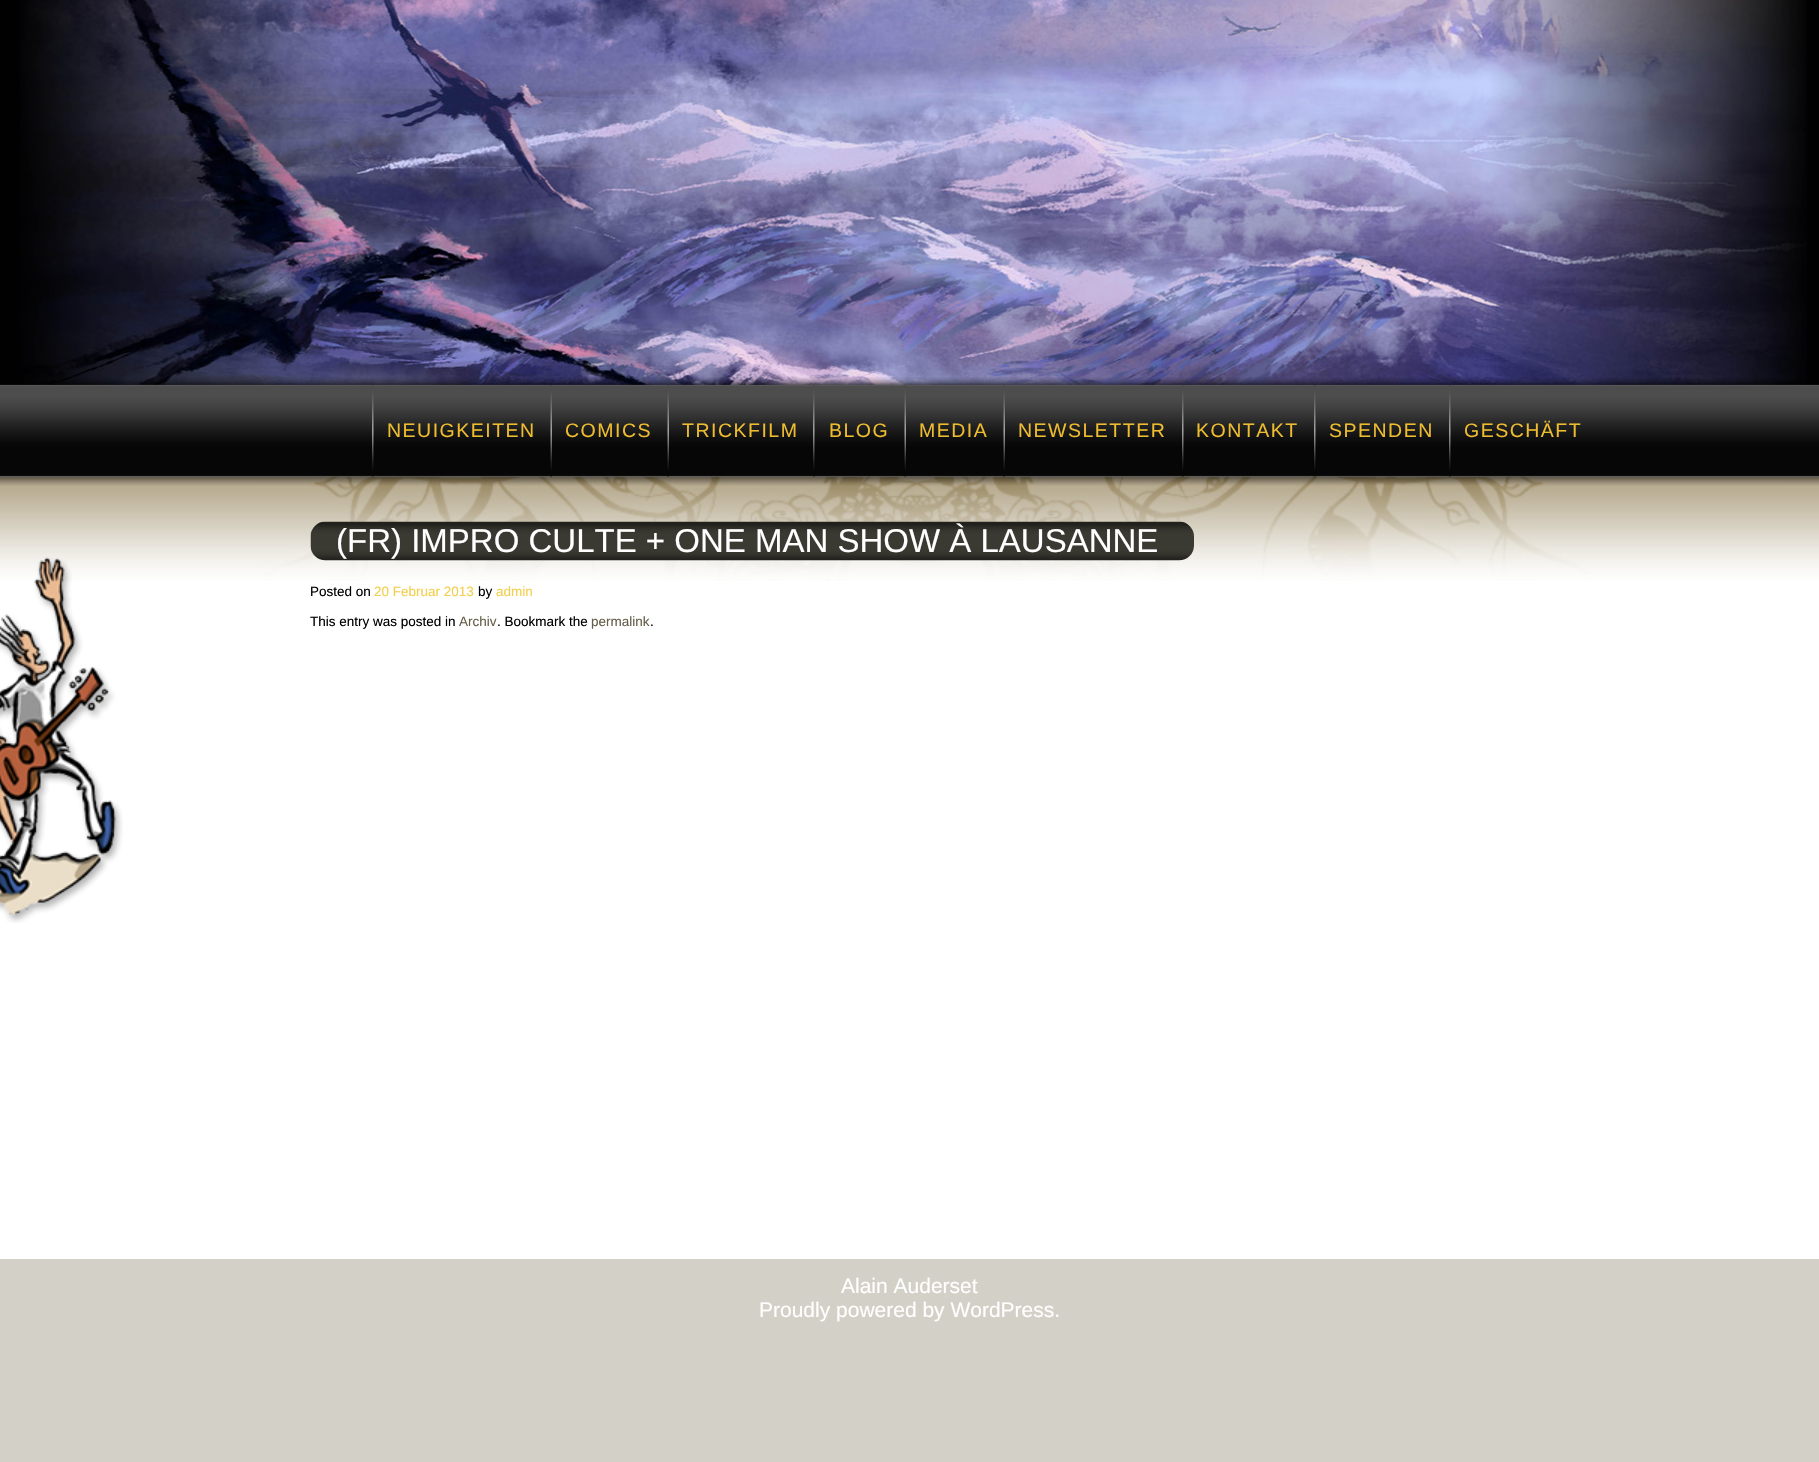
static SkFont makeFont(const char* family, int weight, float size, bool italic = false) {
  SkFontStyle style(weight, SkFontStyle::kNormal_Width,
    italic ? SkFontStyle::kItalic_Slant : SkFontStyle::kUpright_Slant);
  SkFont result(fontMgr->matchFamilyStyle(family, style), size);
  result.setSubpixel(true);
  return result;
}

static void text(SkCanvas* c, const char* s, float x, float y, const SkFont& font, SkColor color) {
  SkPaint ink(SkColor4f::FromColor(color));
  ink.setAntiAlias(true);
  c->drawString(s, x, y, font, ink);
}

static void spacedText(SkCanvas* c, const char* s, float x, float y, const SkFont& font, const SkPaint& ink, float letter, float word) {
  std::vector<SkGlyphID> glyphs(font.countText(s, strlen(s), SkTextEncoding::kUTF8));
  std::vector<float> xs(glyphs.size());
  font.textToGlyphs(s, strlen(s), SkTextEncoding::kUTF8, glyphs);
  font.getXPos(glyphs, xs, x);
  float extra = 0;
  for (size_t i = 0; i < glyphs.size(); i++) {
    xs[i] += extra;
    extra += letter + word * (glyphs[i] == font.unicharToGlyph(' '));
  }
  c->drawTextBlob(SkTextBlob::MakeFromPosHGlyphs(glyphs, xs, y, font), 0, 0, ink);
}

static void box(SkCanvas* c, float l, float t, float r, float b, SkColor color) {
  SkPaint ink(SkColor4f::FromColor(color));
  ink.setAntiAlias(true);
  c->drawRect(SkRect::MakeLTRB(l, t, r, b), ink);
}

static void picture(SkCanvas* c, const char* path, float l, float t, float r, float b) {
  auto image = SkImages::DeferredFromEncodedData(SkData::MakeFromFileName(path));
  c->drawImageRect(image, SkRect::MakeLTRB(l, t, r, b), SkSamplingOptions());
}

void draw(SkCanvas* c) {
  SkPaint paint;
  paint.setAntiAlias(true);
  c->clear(0xffffffff);
  box(c, 0, 0, 1819, 385, 0xff010101);
  picture(c, "img_01.png", 20, 0, 1807, 385);
  picture(c, "img_11.png", 0, 476, 1819, 581);
  picture(c, "img_02.png", 0, 377, 1819, 477);
  picture(c, "img_03.png", 372, 385, 374, 477);
  SkFont face1 = makeFont("Liberation Sans", 400, 19.5f);
  paint.setColor(0xffeebc2f);
  spacedText(c, "NEUIGKEITEN", 387, 437, face1, paint, 1.5f, 0);
  picture(c, "img_04.png", 550, 385, 552, 477);
  spacedText(c, "COMICS", 565, 437, face1, paint, 1.5f, 0);
  picture(c, "img_05.png", 667, 385, 669, 477);
  spacedText(c, "TRICKFILM", 682, 437, face1, paint, 1.5f, 0);
  picture(c, "img_06.png", 813, 385, 815, 477);
  spacedText(c, "BLOG", 829, 437, face1, paint, 1.5f, 0);
  picture(c, "img_07.png", 904, 385, 906, 477);
  spacedText(c, "MEDIA", 919, 437, face1, paint, 1.5f, 0);
  picture(c, "img_08.png", 1003, 385, 1005, 477);
  spacedText(c, "NEWSLETTER", 1018, 437, face1, paint, 1.5f, 0);
  picture(c, "img_03.png", 1182, 385, 1184, 477);
  spacedText(c, "KONTAKT", 1196, 437, face1, paint, 1.5f, 0);
  picture(c, "img_09.png", 1314, 385, 1316, 477);
  spacedText(c, "SPENDEN", 1329, 437, face1, paint, 1.5f, 0);
  picture(c, "img_10.png", 1449, 385, 1451, 477);
  spacedText(c, "GESCHÄFT", 1464, 437, face1, paint, 1.5f, 0);
  picture(c, "img_12.png", 0, 557, 123, 923);
  picture(c, "img_13.png", 310, 521, 1194, 561);
  SkFont face2 = makeFont("Liberation Sans", 400, 33);
  text(c, "(FR) IMPRO CULTE + ONE MAN SHOW À LAUSANNE", 336, 552, face2, 0xffffffff);
  SkFont face3 = makeFont("Liberation Sans", 400, 13.5f);
  text(c, "Posted on", 310, 596, face3, 0xff000000);
  text(c, "20 Februar 2013", 374, 596, face3, 0xfff3cf4f);
  text(c, "by", 478, 596, face3, 0xff000000);
  text(c, "admin", 496, 596, face3, 0xfff3cf4f);
  text(c, "This entry was posted in", 310, 626, face3, 0xff000000);
  text(c, "Archiv", 459, 626, face3, 0xff665e4a);
  text(c, ". Bookmark the", 497, 626, face3, 0xff000000);
  text(c, "permalink", 591, 626, face3, 0xff665e4a);
  text(c, ".", 650, 626, face3, 0xff000000);
  box(c, 0, 1259, 1819, 1462, 0xffd3d1c7);
  SkFont face4 = makeFont("Liberation Sans", 400, 21);
  text(c, "Alain Auderset", 841, 1293, face4, 0xffffffff);
  text(c, "Proudly powered by WordPress.", 759, 1317, face4, 0xffffffff);
}
